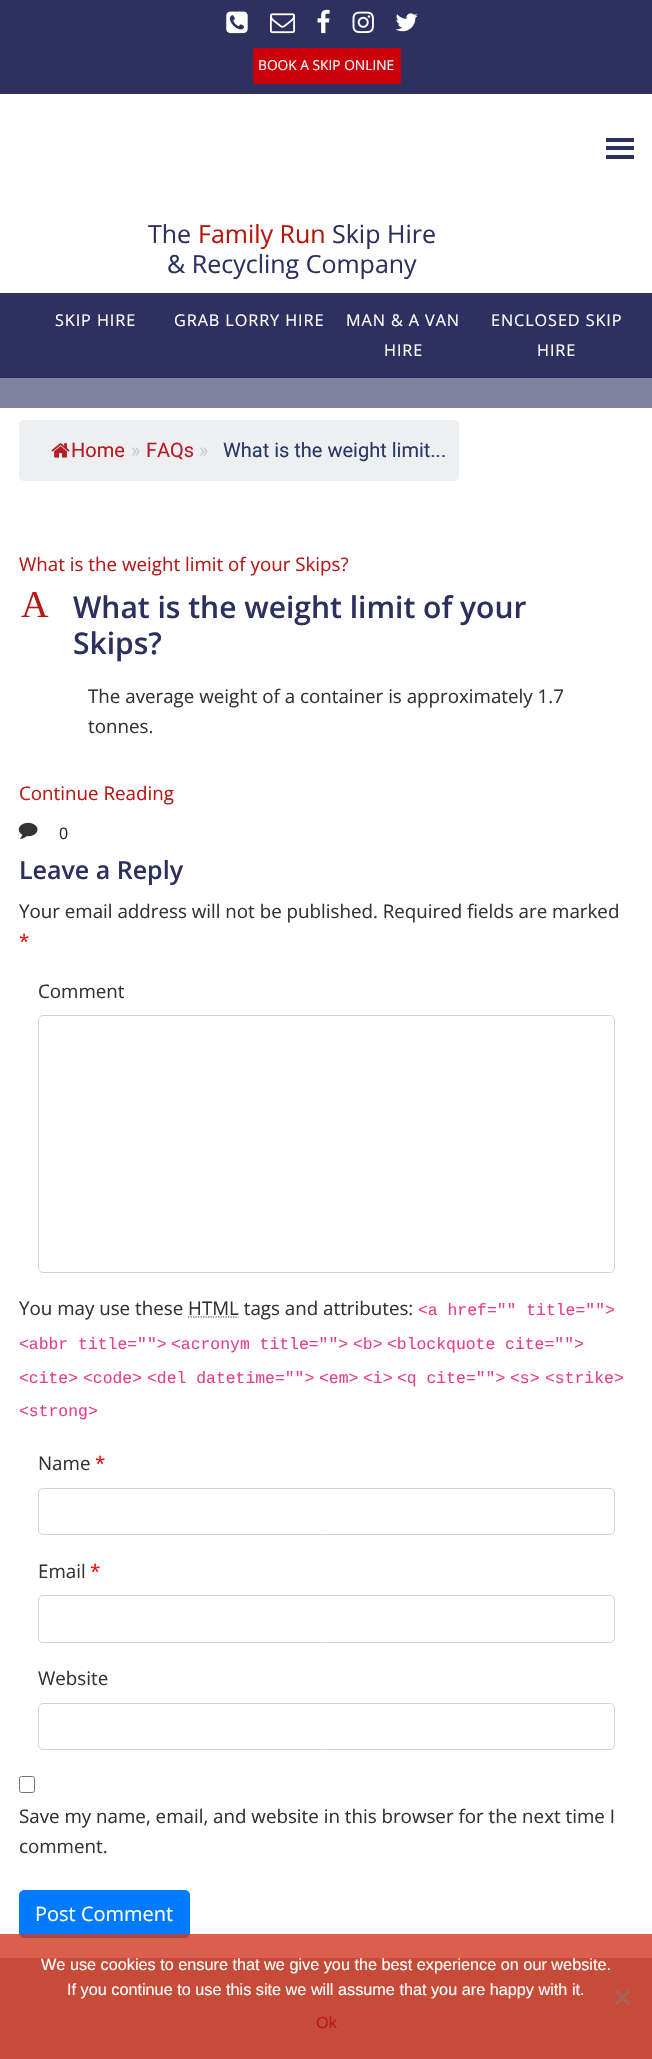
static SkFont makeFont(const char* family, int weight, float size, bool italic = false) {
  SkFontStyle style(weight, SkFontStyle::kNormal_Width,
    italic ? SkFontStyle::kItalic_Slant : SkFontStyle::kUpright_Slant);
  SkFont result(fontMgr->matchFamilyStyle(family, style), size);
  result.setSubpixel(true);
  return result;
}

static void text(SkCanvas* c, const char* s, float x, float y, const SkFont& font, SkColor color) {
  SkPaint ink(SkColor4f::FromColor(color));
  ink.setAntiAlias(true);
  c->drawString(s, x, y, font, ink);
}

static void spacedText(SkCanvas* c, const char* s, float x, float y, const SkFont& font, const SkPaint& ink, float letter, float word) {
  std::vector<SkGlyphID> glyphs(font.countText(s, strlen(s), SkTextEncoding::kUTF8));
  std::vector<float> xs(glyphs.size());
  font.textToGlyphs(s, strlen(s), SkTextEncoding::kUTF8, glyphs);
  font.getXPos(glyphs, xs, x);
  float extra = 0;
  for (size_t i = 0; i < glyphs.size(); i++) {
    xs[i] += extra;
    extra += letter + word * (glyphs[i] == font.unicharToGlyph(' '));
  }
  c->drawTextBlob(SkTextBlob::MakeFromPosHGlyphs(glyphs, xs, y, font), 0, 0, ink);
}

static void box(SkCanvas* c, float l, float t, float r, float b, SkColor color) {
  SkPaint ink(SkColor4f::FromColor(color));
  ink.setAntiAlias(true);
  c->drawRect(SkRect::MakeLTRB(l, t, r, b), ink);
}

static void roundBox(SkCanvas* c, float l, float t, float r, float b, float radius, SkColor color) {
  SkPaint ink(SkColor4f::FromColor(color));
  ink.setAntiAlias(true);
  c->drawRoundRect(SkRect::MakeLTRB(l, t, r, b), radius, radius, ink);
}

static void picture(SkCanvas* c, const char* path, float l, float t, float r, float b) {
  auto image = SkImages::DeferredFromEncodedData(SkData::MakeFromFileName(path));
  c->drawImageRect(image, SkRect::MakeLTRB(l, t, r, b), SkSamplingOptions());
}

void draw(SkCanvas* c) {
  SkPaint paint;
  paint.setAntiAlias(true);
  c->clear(0xffffffff);
  box(c, 0, 0, 652, 94, 0xff2e3060);
  picture(c, "img_01.png", 226, 11, 248, 34);
  picture(c, "img_02.png", 270, 13, 295, 34);
  picture(c, "img_03.png", 317, 9, 330, 34);
  picture(c, "img_04.png", 352, 11, 374, 33);
  picture(c, "img_05.png", 395, 13, 418, 32);
  paint.setColor(0xffcc000a);
  c->drawRoundRect(SkRect::MakeLTRB(254.5f, 49.5f, 399.5f, 82.5f), 1, 1, paint);
  paint.setStyle(SkPaint::kStroke_Style);
  paint.setStrokeWidth(3);
  c->drawRoundRect(SkRect::MakeLTRB(254.5f, 49.5f, 399.5f, 82.5f), 1, 1, paint);
  SkFont face1 = makeFont("Open Sans", 400, 13.75f);
  text(c, "BOOK A SKIP ONLINE", 258, 70, face1, 0xffffffff);
  box(c, 606, 138, 634, 142, 0xff2e3060);
  box(c, 606, 146, 634, 150, 0xff2e3060);
  box(c, 606, 155, 634, 159, 0xff2e3060);
  SkFont face2 = makeFont("Open Sans", 400, 25);
  text(c, "The", 148, 243, face2, 0xff2c305f);
  text(c, "Family Run", 198, 243, face2, 0xffbb130b);
  text(c, "Skip Hire", 332, 243, face2, 0xff2c305f);
  text(c, "& Recycling Company", 167, 273, face2, 0xff2c305f);
  box(c, 0, 293, 652, 378, 0xff2e3060);
  SkFont face3 = makeFont("Open Sans", 400, 16.25f);
  paint.setStyle(SkPaint::kFill_Style);
  paint.setColor(0xffffffff);
  spacedText(c, "SKIP HIRE", 55, 326, face3, paint, 0.9f, 0);
  spacedText(c, "GRAB LORRY HIRE", 174, 326, face3, paint, 0.9f, 0);
  spacedText(c, "MAN & A VAN", 346, 326, face3, paint, 0.9f, 0);
  spacedText(c, "HIRE", 384, 356, face3, paint, 0.9f, 0);
  spacedText(c, "ENCLOSED SKIP", 491, 326, face3, paint, 0.9f, 0);
  spacedText(c, "HIRE", 537, 356, face3, paint, 0.9f, 0);
  box(c, 0, 378, 652, 408, 0xff8283a0);
  roundBox(c, 19, 420, 459, 481, 5, 0xffedeff0);
  picture(c, "img_06.png", 51, 443, 70, 458);
  SkFont face4 = makeFont("Roboto", 400, 20);
  text(c, "Home", 71, 457, face4, 0xffb61e26);
  text(c, "»", 131, 457, face4, 0xffcccccc);
  text(c, "FAQs", 146, 457, face4, 0xffb61e26);
  text(c, "»", 199, 457, face4, 0xffcccccc);
  text(c, "What is the weight limit...", 223, 457, face4, 0xff2a3869);
  SkFont face5 = makeFont("Open Sans", 400, 18.75f);
  text(c, "What is the weight limit of your Skips?", 19, 571, face5, 0xffba1818);
  SkFont face6 = makeFont("Liberation Serif", 400, 38);
  text(c, "A", 21, 617, face6, 0xffba1818);
  SkFont face7 = makeFont("Open Sans", 600, 30);
  text(c, "What is the weight limit of your", 73, 618, face7, 0xff2c305f);
  text(c, "Skips?", 73, 654, face7, 0xff2c305f);
  text(c, "The average weight of a container is approximately 1.7", 88, 703, face5, 0xff333333);
  text(c, "tonnes.", 88, 733, face5, 0xff333333);
  text(c, "Continue Reading", 19, 800, face5, 0xffba1818);
  picture(c, "img_07.png", 18, 822, 38, 839);
  SkFont face8 = makeFont("Open Sans", 400, 16);
  text(c, "0", 59, 839, face8, 0xff212529);
  SkFont face9 = makeFont("Open Sans", 600, 25);
  text(c, "Leave a Reply", 19, 879, face9, 0xff2c305f);
  text(c, "Your email address will not be published. Required fields are marked", 19, 918, face5, 0xff333333);
  text(c, "*", 19, 948, face5, 0xffff0000);
  text(c, "Comment", 38, 998, face5, 0xff333333);
  paint.setStyle(SkPaint::kStroke_Style);
  paint.setStrokeWidth(1);
  paint.setColor(0xffced4da);
  c->drawRoundRect(SkRect::MakeLTRB(38.5f, 1015.5f, 614.5f, 1272.5f), 4.5f, 4.5f, paint);
  text(c, "You may use these HTML tags and attributes:", 19, 1315, face5, 0xff333333);
  SkFont face10 = makeFont("Liberation Mono", 400, 16.4f);
  text(c, "<a href=\"\" title=\"\">", 418, 1315, face10, 0xffe83e8c);
  paint.setStrokeWidth(1.2f);
  paint.setColor(0xff333333);
  paint.setPathEffect(SkDashPathEffect::Make({{1.25f, 1.25f}}, 0));
  c->drawPath(SkPathBuilder().moveTo(188, 1317).lineTo(238.5f, 1317).detach(), paint);
  paint.setPathEffect(nullptr);
  text(c, "<abbr title=\"\">", 19, 1349, face10, 0xffe83e8c);
  text(c, "<acronym title=\"\">", 171, 1349, face10, 0xffe83e8c);
  text(c, "<b>", 353, 1349, face10, 0xffe83e8c);
  text(c, "<blockquote cite=\"\">", 387, 1349, face10, 0xffe83e8c);
  text(c, "<cite>", 19, 1383, face10, 0xffe83e8c);
  text(c, "<code>", 83, 1383, face10, 0xffe83e8c);
  text(c, "<del datetime=\"\">", 147, 1383, face10, 0xffe83e8c);
  text(c, "<em>", 319, 1383, face10, 0xffe83e8c);
  text(c, "<i>", 363, 1383, face10, 0xffe83e8c);
  text(c, "<q cite=\"\">", 397, 1383, face10, 0xffe83e8c);
  text(c, "<s>", 510, 1383, face10, 0xffe83e8c);
  text(c, "<strike>", 545, 1383, face10, 0xffe83e8c);
  text(c, "<strong>", 19, 1416, face10, 0xffe83e8c);
  text(c, "Name", 38, 1470, face5, 0xff333333);
  text(c, "*", 95, 1470, face5, 0xffff0000);
  paint.setStrokeWidth(1);
  paint.setColor(0xffced4da);
  c->drawRoundRect(SkRect::MakeLTRB(38.5f, 1488.5f, 614.5f, 1534.5f), 4.5f, 4.5f, paint);
  text(c, "Email", 38, 1578, face5, 0xff333333);
  text(c, "*", 90, 1578, face5, 0xffff0000);
  c->drawRoundRect(SkRect::MakeLTRB(38.5f, 1595.5f, 614.5f, 1642.5f), 4.5f, 4.5f, paint);
  text(c, "Website", 38, 1685, face5, 0xff333333);
  c->drawRoundRect(SkRect::MakeLTRB(38.5f, 1703.5f, 614.5f, 1749.5f), 4.5f, 4.5f, paint);
  paint.setColor(0xff767676);
  c->drawRoundRect(SkRect::MakeLTRB(19.5f, 1776.5f, 34.5f, 1792.5f), 2, 2, paint);
  text(c, "Save my name, email, and website in this browser for the next time I", 19, 1823, face5, 0xff333333);
  text(c, "comment.", 19, 1853, face5, 0xff333333);
  paint.setStyle(SkPaint::kFill_Style);
  paint.setColor(0xff007bff);
  c->drawRoundRect(SkRect::MakeLTRB(19.5f, 1890.5f, 189.5f, 1937.5f), 4.5f, 4.5f, paint);
  paint.setStyle(SkPaint::kStroke_Style);
  c->drawRoundRect(SkRect::MakeLTRB(19.5f, 1890.5f, 189.5f, 1937.5f), 4.5f, 4.5f, paint);
  SkFont face11 = makeFont("Open Sans", 400, 20);
  text(c, "Post Comment", 35, 1921, face11, 0xffffffff);
  box(c, 0, 1958, 652, 2059, 0xff999999);
  box(c, 0, 1934, 652, 2059, 0xccd13821);
  SkFont face12 = makeFont("Liberation Sans", 400, 16.25f);
  text(c, "We use cookies to ensure that we give you the best experience on our website.", 41, 1970, face12, 0xffffffff);
  text(c, "If you continue to use this site we will assume that you are happy with it.", 67, 1995, face12, 0xffffffff);
  paint.setStyle(SkPaint::kFill_Style);
  paint.setColor(0xffa3665d);
  c->drawPath(SkPathBuilder().moveTo(628, 1990).lineTo(630, 1992).lineTo(617, 2005).lineTo(615, 2003).close().detach(), paint);
  c->drawPath(SkPathBuilder().moveTo(615, 1992).lineTo(617, 1990).lineTo(630, 2003).lineTo(628, 2005).close().detach(), paint);
  text(c, "Ok", 316, 2028, face12, 0xffba1818);
}
